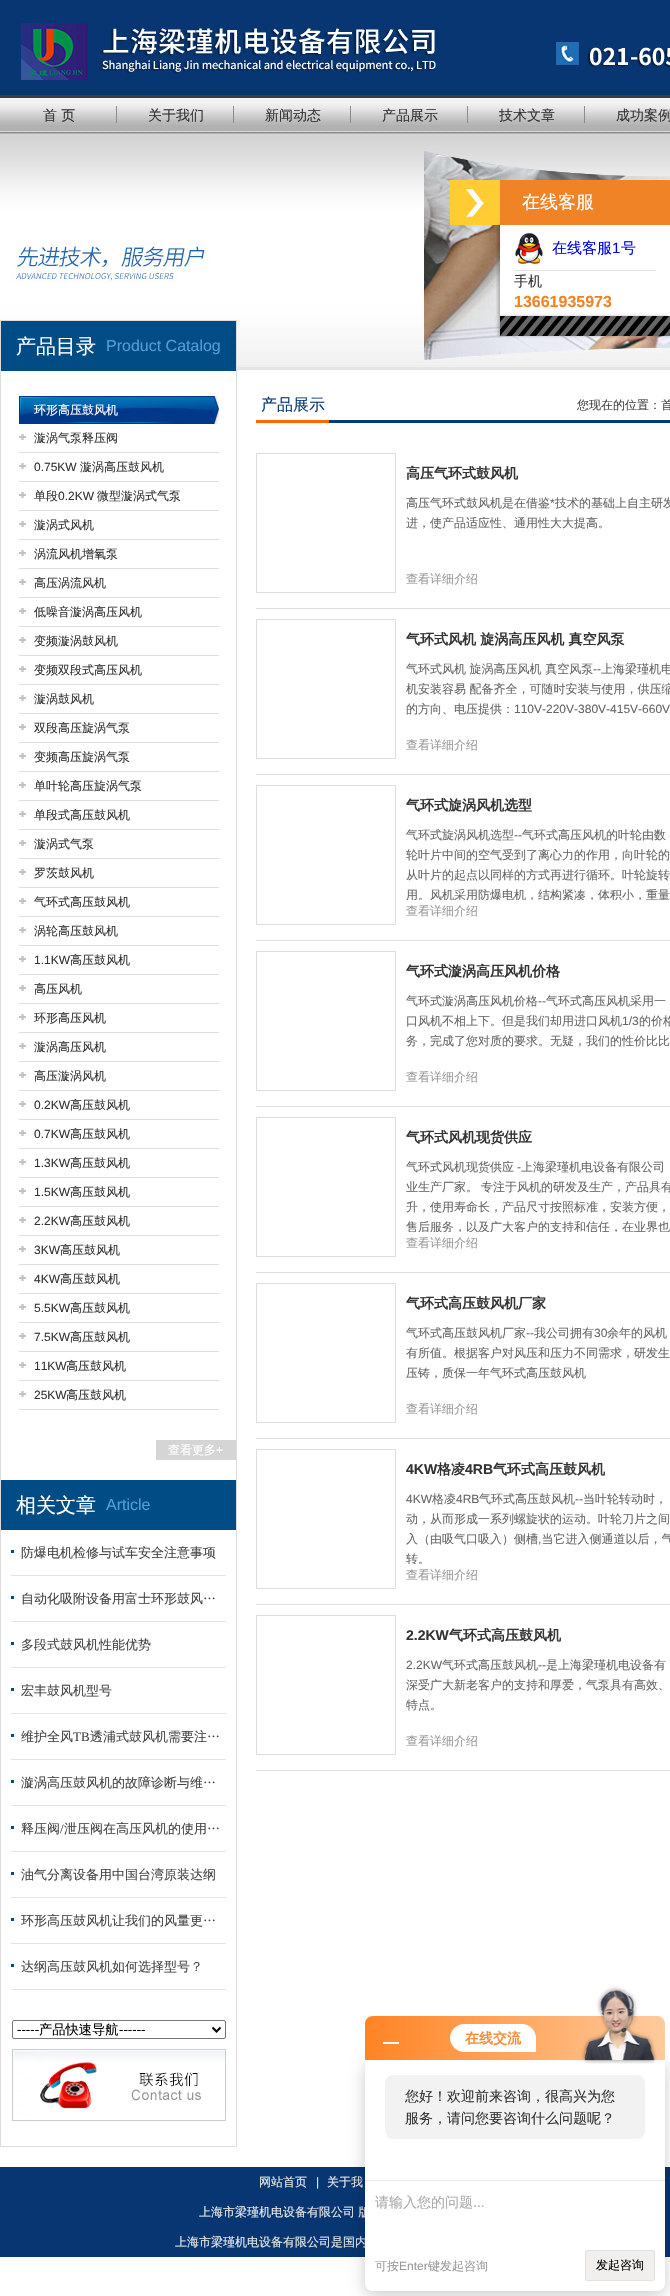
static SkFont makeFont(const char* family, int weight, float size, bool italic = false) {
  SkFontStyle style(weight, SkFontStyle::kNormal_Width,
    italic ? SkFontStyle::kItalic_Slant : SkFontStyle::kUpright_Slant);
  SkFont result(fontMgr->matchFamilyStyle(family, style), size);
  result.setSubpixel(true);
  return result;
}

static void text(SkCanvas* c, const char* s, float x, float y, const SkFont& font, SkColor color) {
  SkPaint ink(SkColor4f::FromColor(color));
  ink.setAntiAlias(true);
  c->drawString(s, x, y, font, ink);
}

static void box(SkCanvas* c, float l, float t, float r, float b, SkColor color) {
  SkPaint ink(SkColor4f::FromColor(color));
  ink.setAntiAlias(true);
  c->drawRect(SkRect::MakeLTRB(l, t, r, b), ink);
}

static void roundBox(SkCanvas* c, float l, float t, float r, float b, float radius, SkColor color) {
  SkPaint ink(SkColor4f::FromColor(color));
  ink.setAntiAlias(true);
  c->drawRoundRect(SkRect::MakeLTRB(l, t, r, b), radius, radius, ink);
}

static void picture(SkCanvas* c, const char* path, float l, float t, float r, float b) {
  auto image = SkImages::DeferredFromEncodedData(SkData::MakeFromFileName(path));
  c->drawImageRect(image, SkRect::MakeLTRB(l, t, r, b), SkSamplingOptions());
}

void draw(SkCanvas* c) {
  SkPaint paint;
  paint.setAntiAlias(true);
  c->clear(0xffffffff);
  box(c, 0, 0, 670, 95, 0xff083672);
  picture(c, "img_01.png", 21, 23, 670, 80);
  picture(c, "img_02.png", 0, 95, 670, 138);
  box(c, 116, 106, 117, 123, 0xff8b8b8b);
  SkFont face1 = makeFont("WenQuanYi Zen Hei", 500, 14);
  text(c, "首 页", 43, 120, face1, 0xff333333);
  box(c, 233, 106, 234, 123, 0xff8b8b8b);
  text(c, "关于我们", 148, 120, face1, 0xff333333);
  box(c, 350, 106, 351, 123, 0xff8b8b8b);
  text(c, "新闻动态", 265, 120, face1, 0xff333333);
  box(c, 467, 106, 468, 123, 0xff8b8b8b);
  text(c, "产品展示", 382, 120, face1, 0xff333333);
  box(c, 584, 106, 585, 123, 0xff8b8b8b);
  text(c, "技术文章", 499, 120, face1, 0xff333333);
  text(c, "成功案例", 616, 120, face1, 0xff333333);
  picture(c, "img_03.png", 0, 138, 670, 370);
  picture(c, "img_04.png", 450, 180, 500, 225);
  box(c, 500, 225, 670, 316, 0xffffffff);
  c->save();
  c->clipRect(SkRect::MakeLTRB(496, 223, 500, 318));
  paint.setColor(0x40000000);
  paint.setMaskFilter(SkMaskFilter::MakeBlur(kNormal_SkBlurStyle, 1.5f));
  c->drawRect(SkRect::MakeLTRB(498, 225, 668, 316), paint);
  paint.setMaskFilter(nullptr);
  c->restore();
  box(c, 500, 180, 670, 225, 0xfff08326);
  SkFont face2 = makeFont("WenQuanYi Zen Hei", 500, 18);
  text(c, "在线客服", 522, 208, face2, 0xffffffff);
  box(c, 514, 270, 656, 271, 0xffe3e3e3);
  picture(c, "img_05.png", 515, 233, 544, 266);
  SkFont face3 = makeFont("WenQuanYi Zen Hei", 500, 15);
  text(c, "在线客服", 552, 253, face3, 0xff0000ee);
  SkFont face4 = makeFont("Liberation Sans", 400, 15);
  text(c, "1", 612, 253, face4, 0xff0000ee);
  text(c, "号", 621, 253, face3, 0xff0000ee);
  text(c, "手机", 514, 286, face1, 0xff333333);
  SkFont face5 = makeFont("Liberation Sans", 700, 16);
  text(c, "13661935973", 514, 307, face5, 0xfff08326);
  paint.setMaskFilter(SkMaskFilter::MakeBlur(kNormal_SkBlurStyle, 1.5f));
  c->drawRect(SkRect::MakeLTRB(498, 316, 668, 336), paint);
  paint.setMaskFilter(nullptr);
  picture(c, "img_06.png", 500, 316, 670, 336);
  paint.setStyle(SkPaint::kStroke_Style);
  paint.setStrokeWidth(1);
  paint.setColor(0xffdddddd);
  c->drawRect(SkRect::MakeLTRB(0.5f, 320.5f, 236.5f, 2146.5f), paint);
  box(c, 1, 321, 236, 371, 0xff014c85);
  SkFont face6 = makeFont("WenQuanYi Zen Hei", 500, 20);
  text(c, "产品目录", 16, 353, face6, 0xffffffff);
  SkFont face7 = makeFont("Liberation Sans", 400, 16);
  text(c, "Product Catalog", 106, 351, face7, 0xff509ed9);
  picture(c, "img_07.png", 19, 396, 219, 424);
  SkFont face8 = makeFont("WenQuanYi Zen Hei", 500, 12);
  text(c, "环形高压鼓风机", 34, 414, face8, 0xffffffff);
  box(c, 19, 452, 219, 453, 0xffdddddd);
  picture(c, "img_08.png", 19, 434, 26, 440);
  text(c, "漩涡气泵释压阀", 34, 442, face8, 0xff333333);
  box(c, 19, 481, 219, 482, 0xffdddddd);
  picture(c, "img_08.png", 19, 463, 26, 469);
  SkFont face9 = makeFont("Liberation Sans", 400, 12);
  text(c, "0.75KW", 34, 471, face9, 0xff333333);
  text(c, "漩涡高压鼓风机", 80, 471, face8, 0xff333333);
  box(c, 19, 510, 219, 511, 0xffdddddd);
  picture(c, "img_08.png", 19, 492, 26, 498);
  text(c, "单段", 34, 500, face8, 0xff333333);
  text(c, "0.2KW", 58, 500, face9, 0xff333333);
  text(c, "微型漩涡式气泵", 97, 500, face8, 0xff333333);
  box(c, 19, 539, 219, 540, 0xffdddddd);
  picture(c, "img_08.png", 19, 521, 26, 527);
  text(c, "漩涡式风机", 34, 529, face8, 0xff333333);
  box(c, 19, 568, 219, 569, 0xffdddddd);
  picture(c, "img_08.png", 19, 550, 26, 556);
  text(c, "涡流风机增氧泵", 34, 558, face8, 0xff333333);
  box(c, 19, 597, 219, 598, 0xffdddddd);
  picture(c, "img_08.png", 19, 579, 26, 585);
  text(c, "高压涡流风机", 34, 587, face8, 0xff333333);
  box(c, 19, 626, 219, 627, 0xffdddddd);
  picture(c, "img_08.png", 19, 608, 26, 614);
  text(c, "低噪音漩涡高压风机", 34, 616, face8, 0xff333333);
  box(c, 19, 655, 219, 656, 0xffdddddd);
  picture(c, "img_08.png", 19, 637, 26, 643);
  text(c, "变频漩涡鼓风机", 34, 645, face8, 0xff333333);
  box(c, 19, 684, 219, 685, 0xffdddddd);
  picture(c, "img_08.png", 19, 666, 26, 672);
  text(c, "变频双段式高压风机", 34, 674, face8, 0xff333333);
  box(c, 19, 713, 219, 714, 0xffdddddd);
  picture(c, "img_08.png", 19, 695, 26, 701);
  text(c, "漩涡鼓风机", 34, 703, face8, 0xff333333);
  box(c, 19, 742, 219, 743, 0xffdddddd);
  picture(c, "img_08.png", 19, 724, 26, 730);
  text(c, "双段高压旋涡气泵", 34, 732, face8, 0xff333333);
  box(c, 19, 771, 219, 772, 0xffdddddd);
  picture(c, "img_08.png", 19, 753, 26, 759);
  text(c, "变频高压旋涡气泵", 34, 761, face8, 0xff333333);
  box(c, 19, 800, 219, 801, 0xffdddddd);
  picture(c, "img_08.png", 19, 782, 26, 788);
  text(c, "单叶轮高压旋涡气泵", 34, 790, face8, 0xff333333);
  box(c, 19, 829, 219, 830, 0xffdddddd);
  picture(c, "img_08.png", 19, 811, 26, 817);
  text(c, "单段式高压鼓风机", 34, 819, face8, 0xff333333);
  box(c, 19, 858, 219, 859, 0xffdddddd);
  picture(c, "img_08.png", 19, 840, 26, 846);
  text(c, "漩涡式气泵", 34, 848, face8, 0xff333333);
  box(c, 19, 887, 219, 888, 0xffdddddd);
  picture(c, "img_08.png", 19, 869, 26, 875);
  text(c, "罗茨鼓风机", 34, 877, face8, 0xff333333);
  box(c, 19, 916, 219, 917, 0xffdddddd);
  picture(c, "img_08.png", 19, 898, 26, 904);
  text(c, "气环式高压鼓风机", 34, 906, face8, 0xff333333);
  box(c, 19, 945, 219, 946, 0xffdddddd);
  picture(c, "img_08.png", 19, 927, 26, 933);
  text(c, "涡轮高压鼓风机", 34, 935, face8, 0xff333333);
  box(c, 19, 974, 219, 975, 0xffdddddd);
  picture(c, "img_08.png", 19, 956, 26, 962);
  text(c, "1.1KW", 34, 964, face9, 0xff333333);
  text(c, "高压鼓风机", 70, 964, face8, 0xff333333);
  box(c, 19, 1003, 219, 1004, 0xffdddddd);
  picture(c, "img_08.png", 19, 985, 26, 991);
  text(c, "高压风机", 34, 993, face8, 0xff333333);
  box(c, 19, 1032, 219, 1033, 0xffdddddd);
  picture(c, "img_08.png", 19, 1014, 26, 1020);
  text(c, "环形高压风机", 34, 1022, face8, 0xff333333);
  box(c, 19, 1061, 219, 1062, 0xffdddddd);
  picture(c, "img_08.png", 19, 1043, 26, 1049);
  text(c, "漩涡高压风机", 34, 1051, face8, 0xff333333);
  box(c, 19, 1090, 219, 1091, 0xffdddddd);
  picture(c, "img_08.png", 19, 1072, 26, 1078);
  text(c, "高压漩涡风机", 34, 1080, face8, 0xff333333);
  box(c, 19, 1119, 219, 1120, 0xffdddddd);
  picture(c, "img_08.png", 19, 1101, 26, 1107);
  text(c, "0.2KW", 34, 1109, face9, 0xff333333);
  text(c, "高压鼓风机", 70, 1109, face8, 0xff333333);
  box(c, 19, 1148, 219, 1149, 0xffdddddd);
  picture(c, "img_08.png", 19, 1130, 26, 1136);
  text(c, "0.7KW", 34, 1138, face9, 0xff333333);
  text(c, "高压鼓风机", 70, 1138, face8, 0xff333333);
  box(c, 19, 1177, 219, 1178, 0xffdddddd);
  picture(c, "img_08.png", 19, 1159, 26, 1165);
  text(c, "1.3KW", 34, 1167, face9, 0xff333333);
  text(c, "高压鼓风机", 70, 1167, face8, 0xff333333);
  box(c, 19, 1206, 219, 1207, 0xffdddddd);
  picture(c, "img_08.png", 19, 1188, 26, 1194);
  text(c, "1.5KW", 34, 1196, face9, 0xff333333);
  text(c, "高压鼓风机", 70, 1196, face8, 0xff333333);
  box(c, 19, 1235, 219, 1236, 0xffdddddd);
  picture(c, "img_08.png", 19, 1217, 26, 1223);
  text(c, "2.2KW", 34, 1225, face9, 0xff333333);
  text(c, "高压鼓风机", 70, 1225, face8, 0xff333333);
  box(c, 19, 1264, 219, 1265, 0xffdddddd);
  picture(c, "img_08.png", 19, 1246, 26, 1252);
  text(c, "3KW", 34, 1254, face9, 0xff333333);
  text(c, "高压鼓风机", 60, 1254, face8, 0xff333333);
  box(c, 19, 1293, 219, 1294, 0xffdddddd);
  picture(c, "img_08.png", 19, 1275, 26, 1281);
  text(c, "4KW", 34, 1283, face9, 0xff333333);
  text(c, "高压鼓风机", 60, 1283, face8, 0xff333333);
  box(c, 19, 1322, 219, 1323, 0xffdddddd);
  picture(c, "img_08.png", 19, 1304, 26, 1310);
  text(c, "5.5KW", 34, 1312, face9, 0xff333333);
  text(c, "高压鼓风机", 70, 1312, face8, 0xff333333);
  box(c, 19, 1351, 219, 1352, 0xffdddddd);
  picture(c, "img_08.png", 19, 1333, 26, 1339);
  text(c, "7.5KW", 34, 1341, face9, 0xff333333);
  text(c, "高压鼓风机", 70, 1341, face8, 0xff333333);
  box(c, 19, 1380, 219, 1381, 0xffdddddd);
  picture(c, "img_08.png", 19, 1362, 26, 1368);
  text(c, "11KW", 34, 1370, face9, 0xff333333);
  text(c, "高压鼓风机", 66, 1370, face8, 0xff333333);
  box(c, 19, 1409, 219, 1410, 0xffdddddd);
  picture(c, "img_08.png", 19, 1391, 26, 1397);
  text(c, "25KW", 34, 1399, face9, 0xff333333);
  text(c, "高压鼓风机", 66, 1399, face8, 0xff333333);
  box(c, 156, 1440, 236, 1460, 0xffd6d5d5);
  text(c, "查看更多", 168, 1454, face8, 0xffffffff);
  text(c, "+", 216, 1454, face9, 0xffffffff);
  box(c, 1, 1480, 236, 1530, 0xff014c85);
  text(c, "相关文章", 16, 1512, face6, 0xffffffff);
  text(c, "Article", 106, 1510, face7, 0xff509ed9);
  box(c, 11, 1550, 14, 1553, 0xff004b82);
  box(c, 11, 1575, 226, 1576, 0xffe5e5e5);
  SkFont face10 = makeFont("WenQuanYi Zen Hei", 500, 13);
  text(c, "防爆电机检修与试车安全注意事项", 21, 1557, face10, 0xff444444);
  box(c, 11, 1596, 14, 1599, 0xff004b82);
  box(c, 11, 1621, 226, 1622, 0xffe5e5e5);
  text(c, "自动化吸附设备用富士环形鼓风…", 21, 1603, face10, 0xff444444);
  box(c, 11, 1642, 14, 1645, 0xff004b82);
  box(c, 11, 1667, 226, 1668, 0xffe5e5e5);
  text(c, "多段式鼓风机性能优势", 21, 1649, face10, 0xff444444);
  box(c, 11, 1688, 14, 1691, 0xff004b82);
  box(c, 11, 1713, 226, 1714, 0xffe5e5e5);
  text(c, "宏丰鼓风机型号", 21, 1695, face10, 0xff444444);
  box(c, 11, 1734, 14, 1737, 0xff004b82);
  box(c, 11, 1759, 226, 1760, 0xffe5e5e5);
  text(c, "维护全风", 21, 1741, face10, 0xff444444);
  SkFont face11 = makeFont("Liberation Serif", 400, 13);
  text(c, "TB", 73, 1741, face11, 0xff444444);
  text(c, "透浦式鼓风机需要注…", 90, 1741, face10, 0xff444444);
  box(c, 11, 1780, 14, 1783, 0xff004b82);
  box(c, 11, 1805, 226, 1806, 0xffe5e5e5);
  text(c, "漩涡高压鼓风机的故障诊断与维…", 21, 1787, face10, 0xff444444);
  box(c, 11, 1826, 14, 1829, 0xff004b82);
  box(c, 11, 1851, 226, 1852, 0xffe5e5e5);
  text(c, "释压阀", 21, 1833, face10, 0xff444444);
  text(c, "/", 60, 1833, face11, 0xff444444);
  text(c, "泄压阀在高压风机的使用…", 64, 1833, face10, 0xff444444);
  box(c, 11, 1872, 14, 1875, 0xff004b82);
  box(c, 11, 1897, 226, 1898, 0xffe5e5e5);
  text(c, "油气分离设备用中国台湾原装达纲", 21, 1879, face10, 0xff444444);
  box(c, 11, 1918, 14, 1921, 0xff004b82);
  box(c, 11, 1943, 226, 1944, 0xffe5e5e5);
  text(c, "环形高压鼓风机让我们的风量更…", 21, 1925, face10, 0xff444444);
  box(c, 11, 1964, 14, 1967, 0xff004b82);
  box(c, 11, 1989, 226, 1990, 0xffe5e5e5);
  text(c, "达纲高压鼓风机如何选择型号？", 21, 1971, face10, 0xff444444);
  paint.setColor(0xff767676);
  c->drawRoundRect(SkRect::MakeLTRB(12.5f, 2020.5f, 225.5f, 2038.5f), 1.5f, 1.5f, paint);
  paint.setStrokeWidth(2);
  paint.setColor(0xff000000);
  c->drawPath(SkPathBuilder().moveTo(212.5f, 2027.5f).lineTo(216.5f, 2031.5f).lineTo(220.5f, 2027.5f).detach(), paint);
  SkFont face12 = makeFont("Liberation Sans", 400, 13.25f);
  text(c, "-----", 17, 2034, face12, 0xff000000);
  SkFont face13 = makeFont("WenQuanYi Zen Hei", 500, 13.25f);
  text(c, "产品快速导航", 39, 2034, face13, 0xff000000);
  text(c, "------", 119, 2034, face12, 0xff000000);
  picture(c, "img_09.png", 12, 2049, 226, 2121);
  box(c, 329, 420, 670, 423, 0xff073975);
  box(c, 256, 420, 329, 423, 0xffff6600);
  SkFont face14 = makeFont("WenQuanYi Zen Hei", 500, 16);
  text(c, "产品展示", 261, 410, face14, 0xff073975);
  text(c, "您现在的位置：首", 577, 409, face8, 0xff444444);
  box(c, 256, 608, 670, 609, 0xffdedede);
  box(c, 256, 453, 396, 454, 0xffdddddd);
  box(c, 395, 453, 396, 593, 0xffdddddd);
  box(c, 256, 592, 396, 593, 0xffdddddd);
  box(c, 256, 453, 257, 593, 0xffdddddd);
  SkFont face15 = makeFont("WenQuanYi Zen Hei", 700, 14);
  text(c, "高压气环式鼓风机", 406, 478, face15, 0xff333333);
  text(c, "高压气环式鼓风机是在借鉴", 406, 507, face8, 0xff666666);
  text(c, "*", 550, 507, face9, 0xff666666);
  text(c, "技术的基础上自主研发", 555, 507, face8, 0xff666666);
  text(c, "进，使产品适应性、通用性大大提高。", 406, 527, face8, 0xff666666);
  text(c, "查看详细介绍", 406, 583, face8, 0xff999999);
  box(c, 256, 774, 670, 775, 0xffdedede);
  box(c, 256, 619, 396, 620, 0xffdddddd);
  box(c, 395, 619, 396, 759, 0xffdddddd);
  box(c, 256, 758, 396, 759, 0xffdddddd);
  box(c, 256, 619, 257, 759, 0xffdddddd);
  text(c, "气环式风机 旋涡高压风机 真空风泵", 406, 644, face15, 0xff333333);
  text(c, "气环式风机 旋涡高压风机 真空风泵", 406, 673, face8, 0xff666666);
  text(c, "--", 593, 673, face9, 0xff666666);
  text(c, "上海梁瑾机电", 601, 673, face8, 0xff666666);
  text(c, "机安装容易 配备齐全，可随时安装与使用，供压缩", 406, 693, face8, 0xff666666);
  text(c, "的方向、电压提供：", 406, 713, face8, 0xff666666);
  text(c, "110V-220V-380V-415V-660V", 514, 713, face9, 0xff666666);
  text(c, "查看详细介绍", 406, 749, face8, 0xff999999);
  box(c, 256, 940, 670, 941, 0xffdedede);
  box(c, 256, 785, 396, 786, 0xffdddddd);
  box(c, 395, 785, 396, 925, 0xffdddddd);
  box(c, 256, 924, 396, 925, 0xffdddddd);
  box(c, 256, 785, 257, 925, 0xffdddddd);
  text(c, "气环式旋涡风机选型", 406, 810, face15, 0xff333333);
  text(c, "气环式旋涡风机选型", 406, 839, face8, 0xff666666);
  text(c, "--", 514, 839, face9, 0xff666666);
  text(c, "气环式高压风机的叶轮由数", 522, 839, face8, 0xff666666);
  text(c, "轮叶片中间的空气受到了离心力的作用，向叶轮的", 406, 859, face8, 0xff666666);
  text(c, "从叶片的起点以同样的方式再进行循环。叶轮旋转", 406, 879, face8, 0xff666666);
  c->save();
  c->clipRect(SkRect::MakeLTRB(406, 825, 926, 900));
  text(c, "用。风机采用防爆电机，结构紧凑，体积小，重量", 406, 899, face8, 0xff666666);
  c->restore();
  text(c, "查看详细介绍", 406, 915, face8, 0xff999999);
  box(c, 256, 1106, 670, 1107, 0xffdedede);
  box(c, 256, 951, 396, 952, 0xffdddddd);
  box(c, 395, 951, 396, 1091, 0xffdddddd);
  box(c, 256, 1090, 396, 1091, 0xffdddddd);
  box(c, 256, 951, 257, 1091, 0xffdddddd);
  text(c, "气环式漩涡高压风机价格", 406, 976, face15, 0xff333333);
  text(c, "气环式漩涡高压风机价格", 406, 1005, face8, 0xff666666);
  text(c, "--", 538, 1005, face9, 0xff666666);
  text(c, "气环式高压风机采用一", 546, 1005, face8, 0xff666666);
  text(c, "口风机不相上下。但是我们却用进口风机", 406, 1025, face8, 0xff666666);
  text(c, "1/3", 622, 1025, face9, 0xff666666);
  text(c, "的价格", 639, 1025, face8, 0xff666666);
  text(c, "务，完成了您对质的要求。无疑，我们的性价比比", 406, 1045, face8, 0xff666666);
  text(c, "查看详细介绍", 406, 1081, face8, 0xff999999);
  box(c, 256, 1272, 670, 1273, 0xffdedede);
  box(c, 256, 1117, 396, 1118, 0xffdddddd);
  box(c, 395, 1117, 396, 1257, 0xffdddddd);
  box(c, 256, 1256, 396, 1257, 0xffdddddd);
  box(c, 256, 1117, 257, 1257, 0xffdddddd);
  text(c, "气环式风机现货供应", 406, 1142, face15, 0xff333333);
  text(c, "气环式风机现货供应", 406, 1171, face8, 0xff666666);
  text(c, "-", 517, 1171, face9, 0xff666666);
  text(c, "上海梁瑾机电设备有限公司", 521, 1171, face8, 0xff666666);
  text(c, "业生产厂家。", 406, 1191, face8, 0xff666666);
  text(c, "专注于风机的研发及生产，产品具有", 481, 1191, face8, 0xff666666);
  text(c, "升，使用寿命长，产品尺寸按照标准，安装方便，", 406, 1211, face8, 0xff666666);
  c->save();
  c->clipRect(SkRect::MakeLTRB(406, 1157, 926, 1232));
  text(c, "售后服务，以及广大客户的支持和信任，在业界也", 406, 1231, face8, 0xff666666);
  c->restore();
  text(c, "查看详细介绍", 406, 1247, face8, 0xff999999);
  box(c, 256, 1438, 670, 1439, 0xffdedede);
  box(c, 256, 1283, 396, 1284, 0xffdddddd);
  box(c, 395, 1283, 396, 1423, 0xffdddddd);
  box(c, 256, 1422, 396, 1423, 0xffdddddd);
  box(c, 256, 1283, 257, 1423, 0xffdddddd);
  text(c, "气环式高压鼓风机厂家", 406, 1308, face15, 0xff333333);
  text(c, "气环式高压鼓风机厂家", 406, 1337, face8, 0xff666666);
  text(c, "--", 526, 1337, face9, 0xff666666);
  text(c, "我公司拥有", 534, 1337, face8, 0xff666666);
  text(c, "30", 594, 1337, face9, 0xff666666);
  text(c, "余年的风机", 607, 1337, face8, 0xff666666);
  text(c, "有所值。根据客户对风压和压力不同需求，研发生", 406, 1357, face8, 0xff666666);
  text(c, "压铸，质保一年气环式高压鼓风机", 406, 1377, face8, 0xff666666);
  text(c, "查看详细介绍", 406, 1413, face8, 0xff999999);
  box(c, 256, 1604, 670, 1605, 0xffdedede);
  box(c, 256, 1449, 396, 1450, 0xffdddddd);
  box(c, 395, 1449, 396, 1589, 0xffdddddd);
  box(c, 256, 1588, 396, 1589, 0xffdddddd);
  box(c, 256, 1449, 257, 1589, 0xffdddddd);
  SkFont face16 = makeFont("Liberation Sans", 700, 14);
  text(c, "4KW", 406, 1474, face16, 0xff333333);
  text(c, "格凌", 437, 1474, face15, 0xff333333);
  text(c, "4RB", 465, 1474, face16, 0xff333333);
  text(c, "气环式高压鼓风机", 493, 1474, face15, 0xff333333);
  text(c, "4KW", 406, 1503, face9, 0xff666666);
  text(c, "格凌", 432, 1503, face8, 0xff666666);
  text(c, "4RB", 456, 1503, face9, 0xff666666);
  text(c, "气环式高压鼓风机", 479, 1503, face8, 0xff666666);
  text(c, "--", 575, 1503, face9, 0xff666666);
  text(c, "当叶轮转动时，", 583, 1503, face8, 0xff666666);
  text(c, "动，从而形成一系列螺旋状的运动。叶轮刀片之间", 406, 1523, face8, 0xff666666);
  text(c, "入（由吸气口吸入）侧槽 当它进入侧通道以后，气", 406, 1543, face8, 0xff666666);
  text(c, ",", 538, 1543, face9, 0xff666666);
  c->save();
  c->clipRect(SkRect::MakeLTRB(406, 1489, 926, 1564));
  text(c, "转。", 406, 1563, face8, 0xff666666);
  c->restore();
  text(c, "查看详细介绍", 406, 1579, face8, 0xff999999);
  box(c, 256, 1770, 670, 1771, 0xffdedede);
  box(c, 256, 1615, 396, 1616, 0xffdddddd);
  box(c, 395, 1615, 396, 1755, 0xffdddddd);
  box(c, 256, 1754, 396, 1755, 0xffdddddd);
  box(c, 256, 1615, 257, 1755, 0xffdddddd);
  text(c, "2.2KW", 406, 1640, face16, 0xff333333);
  text(c, "气环式高压鼓风机", 449, 1640, face15, 0xff333333);
  text(c, "2.2KW", 406, 1669, face9, 0xff666666);
  text(c, "气环式高压鼓风机", 442, 1669, face8, 0xff666666);
  text(c, "--", 538, 1669, face9, 0xff666666);
  text(c, "是上海梁瑾机电设备有", 546, 1669, face8, 0xff666666);
  text(c, "深受广大新老客户的支持和厚爱，气泵具有高效、", 406, 1689, face8, 0xff666666);
  text(c, "特点。", 406, 1709, face8, 0xff666666);
  text(c, "查看详细介绍", 406, 1745, face8, 0xff999999);
  box(c, 0, 2167, 670, 2257, 0xff073672);
  text(c, "网站首页", 259, 2186, face8, 0xffe8e8e8);
  text(c, "|", 316, 2186, face9, 0xffe8e8e8);
  text(c, "关于我", 327, 2186, face8, 0xffe8e8e8);
  text(c, "上海市梁瑾机电设备有限公司 版", 199, 2216, face8, 0xffe8e8e8);
  text(c, "上海市梁瑾机电设备有限公司是国内", 175, 2246, face8, 0xffe8e8e8);
  paint.setStyle(SkPaint::kFill_Style);
  paint.setColor(0x33000000);
  paint.setMaskFilter(SkMaskFilter::MakeBlur(kNormal_SkBlurStyle, 8));
  c->drawRoundRect(SkRect::MakeLTRB(365, 2064, 665, 2295), 8, 8, paint);
  paint.setMaskFilter(nullptr);
  {
    const SkColor colors[] = {0xffff8324, 0xfffecb9c};
    const float stops[] = {0, 1};
    const SkPoint ends[] = {{365, 2038}, {665, 2038}};
    paint.setShader(SkGradientShader::MakeLinear(ends, colors, stops, 2, SkTileMode::kClamp));
    paint.setAlpha(255);
  }
  c->drawPath(SkPathBuilder().moveTo(373, 2016).lineTo(657, 2016).cubicTo(661.5f, 2016, 665, 2019.5f, 665, 2024).lineTo(665, 2060).lineTo(365, 2060).lineTo(365, 2024).cubicTo(365, 2019.5f, 368.5f, 2016, 373, 2016).close().detach(), paint);
  box(c, 383, 2042, 399, 2044, 0xffffffff);
  paint.setShader(nullptr);
  paint.setColor(0xffffffff);
  c->drawPath(SkPathBuilder().moveTo(464, 2024).lineTo(522, 2024).cubicTo(529.5f, 2024, 536, 2030.5f, 536, 2038).lineTo(536, 2052).lineTo(464, 2052).cubicTo(456.5f, 2052, 450, 2045.5f, 450, 2038).cubicTo(450, 2030.5f, 456.5f, 2024, 464, 2024).close().detach(), paint);
  text(c, "在线交流", 465, 2043, face15, 0xfffb8b36);
  c->drawPath(SkPathBuilder().moveTo(365, 2060).lineTo(665, 2060).lineTo(665, 2283).cubicTo(665, 2287.5f, 661.5f, 2291, 657, 2291).lineTo(373, 2291).cubicTo(368.5f, 2291, 365, 2287.5f, 365, 2283).close().detach(), paint);
  picture(c, "img_10.png", 581, 1986, 657, 2064);
  roundBox(c, 385, 2075, 645, 2139, 8, 0xfff2f2f2);
  text(c, "您好！欢迎前来咨询，很高兴为您", 405, 2101, face1, 0xff333333);
  text(c, "服务，请问您要咨询什么问题呢？", 405, 2123, face1, 0xff333333);
  box(c, 365, 2180, 665, 2181, 0xffeaeaea);
  text(c, "请输入您的问题", 375, 2207, face1, 0xffaaaaaa);
  SkFont face17 = makeFont("Liberation Sans", 400, 14);
  text(c, "...", 473, 2207, face17, 0xffaaaaaa);
  text(c, "可按", 375, 2270, face8, 0xff999999);
  text(c, "Enter", 399, 2270, face9, 0xff999999);
  text(c, "键发起咨询", 428, 2270, face8, 0xff999999);
  paint.setColor(0xfff0efed);
  c->drawRoundRect(SkRect::MakeLTRB(585.5f, 2250.5f, 654.5f, 2280.5f), 1.5f, 1.5f, paint);
  paint.setStyle(SkPaint::kStroke_Style);
  paint.setStrokeWidth(1);
  paint.setColor(0xffe2e2e2);
  c->drawRoundRect(SkRect::MakeLTRB(585.5f, 2250.5f, 654.5f, 2280.5f), 1.5f, 1.5f, paint);
  text(c, "发起咨询", 596, 2269, face8, 0xff000000);
}
